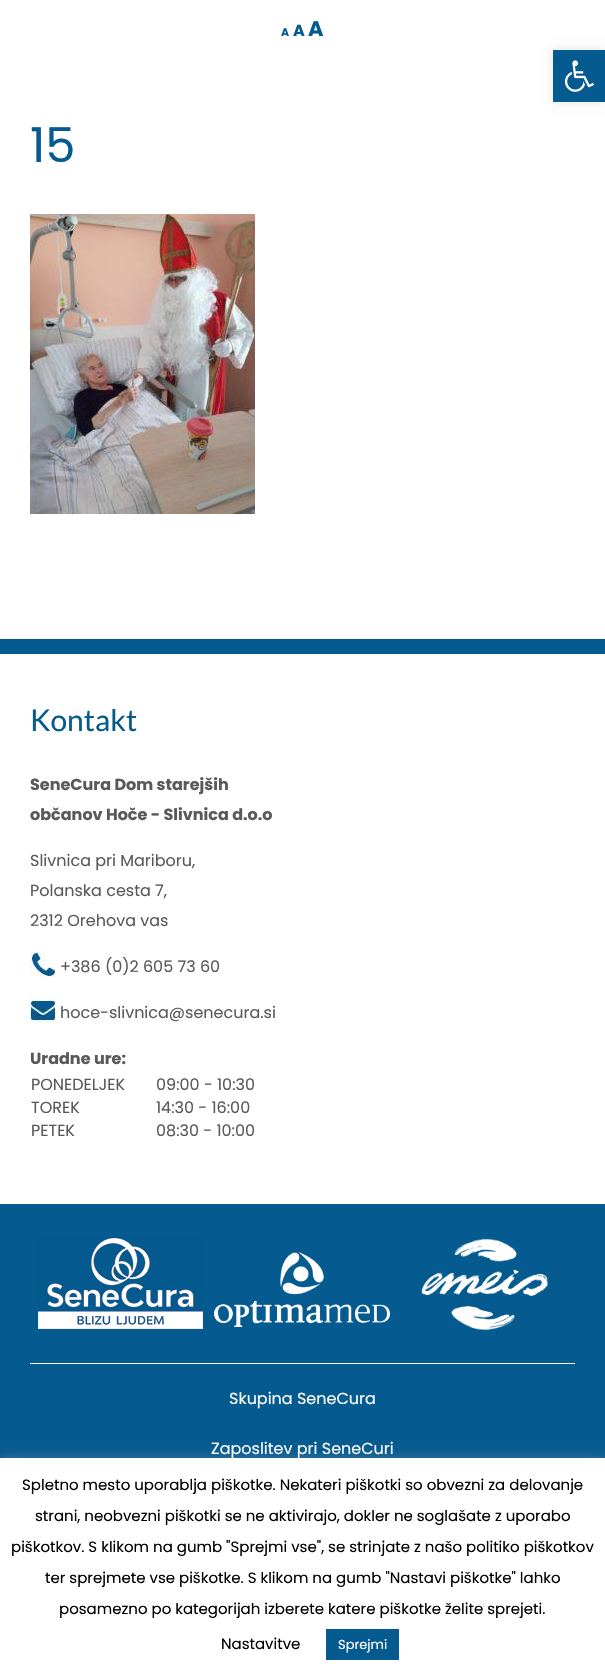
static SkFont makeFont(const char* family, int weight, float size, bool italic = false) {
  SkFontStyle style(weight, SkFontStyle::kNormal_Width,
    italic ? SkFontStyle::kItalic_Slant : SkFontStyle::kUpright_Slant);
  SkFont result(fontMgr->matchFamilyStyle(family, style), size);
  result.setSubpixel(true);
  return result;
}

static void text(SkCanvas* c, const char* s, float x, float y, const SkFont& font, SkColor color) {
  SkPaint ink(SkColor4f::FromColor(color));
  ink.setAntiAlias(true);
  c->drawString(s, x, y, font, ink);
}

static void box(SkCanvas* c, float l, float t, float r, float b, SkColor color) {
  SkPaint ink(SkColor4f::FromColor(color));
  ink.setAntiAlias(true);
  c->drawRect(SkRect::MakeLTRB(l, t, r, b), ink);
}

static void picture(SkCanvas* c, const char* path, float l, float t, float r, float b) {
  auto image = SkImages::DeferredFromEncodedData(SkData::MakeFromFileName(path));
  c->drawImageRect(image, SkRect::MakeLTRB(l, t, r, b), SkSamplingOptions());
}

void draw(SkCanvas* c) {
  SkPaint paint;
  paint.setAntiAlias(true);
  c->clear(0xffffffff);
  SkFont face1 = makeFont("Poppins", 700, 11);
  text(c, "A", 281, 36, face1, 0xff055a8f);
  SkFont face2 = makeFont("Poppins", 700, 16);
  text(c, "A", 293, 36, face2, 0xff055a8f);
  SkFont face3 = makeFont("Poppins", 700, 21);
  text(c, "A", 308, 36, face3, 0xff055a8f);
  SkFont face4 = makeFont("Poppins", 400, 48);
  text(c, "15", 30, 162, face4, 0xff055a8f);
  picture(c, "img_01.png", 30, 214, 255, 514);
  box(c, 0, 639, 605, 654, 0xff055a8f);
  SkFont face5 = makeFont("Lato", 400, 30);
  text(c, "Kontakt", 30, 731, face5, 0xff055a8f);
  text(c, "SeneCura Dom starejših", 30, 790, face2, 0xff595959);
  text(c, "občanov Hoče - Slivnica d.o.o", 30, 820, face2, 0xff595959);
  SkFont face6 = makeFont("Poppins", 400, 16);
  text(c, "Slivnica pri Mariboru,", 30, 866, face6, 0xff595959);
  text(c, "Polanska cesta 7,", 30, 896, face6, 0xff595959);
  text(c, "2312 Orehova vas", 30, 926, face6, 0xff595959);
  picture(c, "img_02.png", 30, 952, 56, 977);
  text(c, "+386 (0)2 605 73 60", 60, 972, face6, 0xff595959);
  picture(c, "img_03.png", 30, 998, 56, 1023);
  text(c, "hoce-slivnica@senecura.si", 60, 1018, face6, 0xff595959);
  text(c, "Uradne ure:", 30, 1064, face2, 0xff595959);
  text(c, "PONEDELJEK", 31, 1090, face6, 0xff595959);
  text(c, "09:00 - 10:30", 156, 1090, face6, 0xff595959);
  text(c, "TOREK", 31, 1113, face6, 0xff595959);
  text(c, "14:30 - 16:00", 156, 1113, face6, 0xff595959);
  text(c, "PETEK", 31, 1136, face6, 0xff595959);
  text(c, "08:30 - 10:00", 156, 1136, face6, 0xff595959);
  box(c, 0, 1204, 605, 1458, 0xff055a8f);
  picture(c, "img_04.png", 38, 1238, 203, 1329);
  picture(c, "img_05.png", 214, 1252, 390, 1327);
  picture(c, "img_06.png", 421, 1238, 548, 1331);
  box(c, 30, 1363, 575, 1364, 0xffffffff);
  text(c, "Skupina SeneCura", 229, 1404, face6, 0xffffffff);
  text(c, "Zaposlitev pri SeneCuri", 211, 1454, face6, 0xffffffff);
  paint.setColor(0x1a000000);
  paint.setMaskFilter(SkMaskFilter::MakeBlur(kNormal_SkBlurStyle, 5));
  c->drawRect(SkRect::MakeLTRB(553, 50, 605, 102), paint);
  paint.setMaskFilter(nullptr);
  box(c, 553, 50, 605, 102, 0xff055a8f);
  picture(c, "img_07.png", 564, 60, 594, 92);
  paint.setColor(0x4dacabab);
  paint.setMaskFilter(SkMaskFilter::MakeBlur(kNormal_SkBlurStyle, 5));
  c->drawRect(SkRect::MakeLTRB(0, 1457, 605, 1676), paint);
  paint.setMaskFilter(nullptr);
  box(c, 0, 1458, 605, 1677, 0xffffffff);
  SkFont face7 = makeFont("Poppins", 400, 15);
  text(c, "Spletno mesto uporablja piškotke. Nekateri piškotki so obvezni za delovanje", 22, 1490, face7, 0xff000000);
  text(c, "strani, neobvezni piškotki se ne aktivirajo, dokler ne soglašate z uporabo", 35, 1521, face7, 0xff000000);
  text(c, "piškotkov. S klikom na gumb \"Sprejmi vse\", se strinjate z našo politiko piškotkov", 11, 1552, face7, 0xff000000);
  text(c, "ter sprejmete vse piškotke. S klikom na gumb \"Nastavi piškotke\" lahko", 45, 1583, face7, 0xff000000);
  text(c, "posamezno po kategorijah izberete katere piškotke želite sprejeti.", 59, 1614, face7, 0xff000000);
  text(c, "Nastavitve", 221, 1649, face7, 0xff000000);
  box(c, 326, 1629, 399, 1660, 0xff055a8f);
  SkFont face8 = makeFont("Poppins", 400, 13);
  text(c, "Sprejmi", 338, 1649, face8, 0xffffffff);
}
